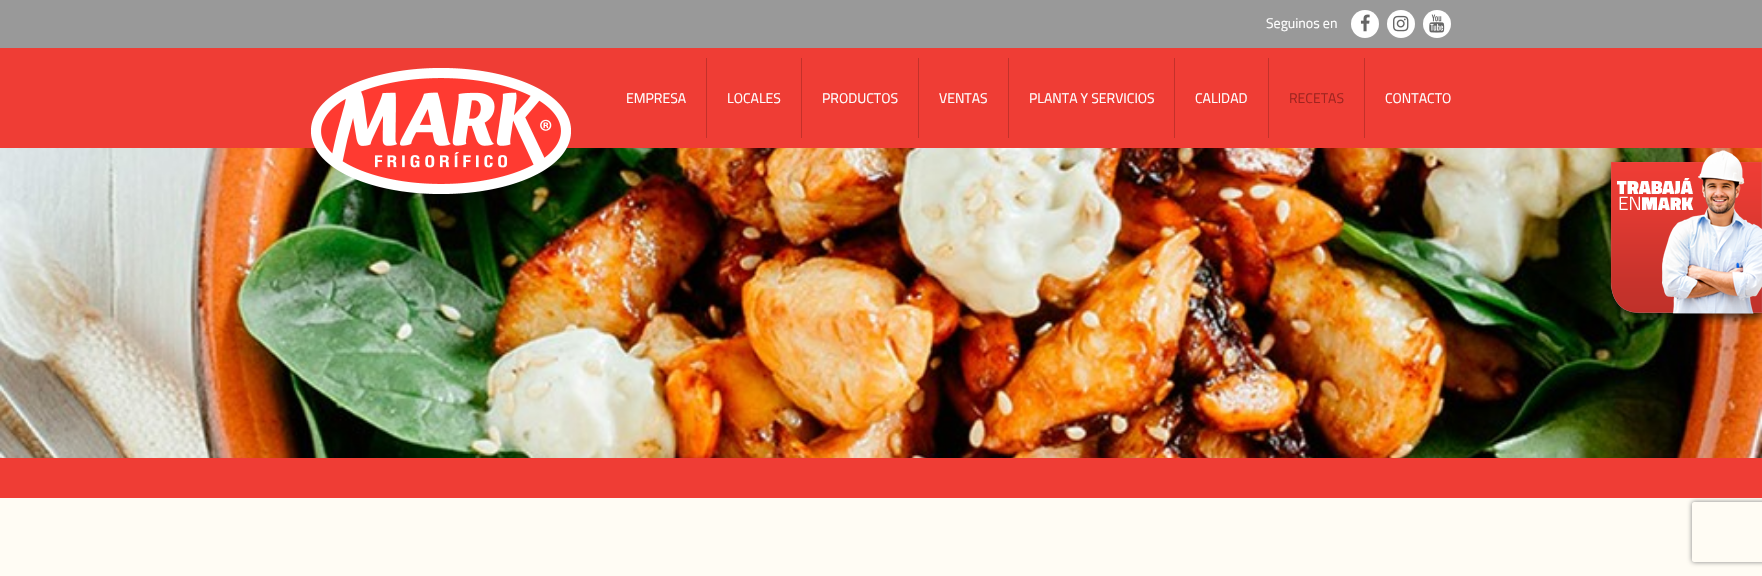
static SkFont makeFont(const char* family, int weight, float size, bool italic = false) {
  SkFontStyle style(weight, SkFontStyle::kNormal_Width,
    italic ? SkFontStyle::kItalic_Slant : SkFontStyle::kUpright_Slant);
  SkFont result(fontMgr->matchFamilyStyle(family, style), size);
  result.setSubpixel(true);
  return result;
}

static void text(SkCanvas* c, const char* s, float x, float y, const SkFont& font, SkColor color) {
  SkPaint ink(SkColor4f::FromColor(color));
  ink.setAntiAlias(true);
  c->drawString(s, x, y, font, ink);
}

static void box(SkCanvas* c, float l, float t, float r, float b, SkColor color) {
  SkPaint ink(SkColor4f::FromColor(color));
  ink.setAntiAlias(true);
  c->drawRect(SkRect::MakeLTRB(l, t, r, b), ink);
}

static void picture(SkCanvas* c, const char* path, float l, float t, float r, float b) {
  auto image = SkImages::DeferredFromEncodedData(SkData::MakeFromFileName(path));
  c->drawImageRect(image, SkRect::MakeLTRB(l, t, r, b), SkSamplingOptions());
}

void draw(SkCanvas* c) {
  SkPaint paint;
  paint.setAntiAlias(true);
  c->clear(0xff999999);
  SkFont face1 = makeFont("Titillium Web", 400, 14);
  text(c, "Seguinos en", 1266, 28, face1, 0xffffffff);
  paint.setColor(0xffffffff);
  c->drawCircle(1365, 24, 14, paint);
  picture(c, "img_01.png", 1360, 14, 1370, 32);
  c->drawCircle(1401, 24, 14, paint);
  picture(c, "img_02.png", 1393, 15, 1409, 32);
  c->drawCircle(1437, 24, 14, paint);
  picture(c, "img_03.png", 1429, 14, 1445, 33);
  box(c, 0, 48, 1762, 148, 0xffef3d35);
  picture(c, "img_05.png", 0, 148, 1762, 458);
  picture(c, "img_04.png", 311, 68, 571, 194);
  box(c, 706, 58, 707, 138, 0xffc3312a);
  text(c, "EMPRESA", 626, 103, face1, 0xffffffff);
  box(c, 801, 58, 802, 138, 0xffc3312a);
  text(c, "LOCALES", 727, 103, face1, 0xffffffff);
  box(c, 918, 58, 919, 138, 0xffc3312a);
  text(c, "PRODUCTOS", 822, 103, face1, 0xffffffff);
  box(c, 1008, 58, 1009, 138, 0xffc3312a);
  text(c, "VENTAS", 939, 103, face1, 0xffffffff);
  box(c, 1174, 58, 1175, 138, 0xffc3312a);
  text(c, "PLANTA Y SERVICIOS", 1029, 103, face1, 0xffffffff);
  box(c, 1268, 58, 1269, 138, 0xffc3312a);
  text(c, "CALIDAD", 1195, 103, face1, 0xffffffff);
  box(c, 1364, 58, 1365, 138, 0xffc3312a);
  text(c, "RECETAS", 1289, 103, face1, 0xff9f241f);
  text(c, "CONTACTO", 1385, 103, face1, 0xffffffff);
  box(c, 0, 458, 1762, 498, 0xffef3d35);
  picture(c, "img_06.png", 1603, 150, 1762, 325);
  box(c, 0, 498, 1762, 576, 0xfffffcf4);
  c->save();
  c->clipPath(SkPathBuilder(SkPathFillType::kEvenOdd).moveTo(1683, 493).lineTo(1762, 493).lineTo(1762, 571).lineTo(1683, 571).close().moveTo(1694, 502).lineTo(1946, 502).cubicTo(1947, 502, 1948, 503, 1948, 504).lineTo(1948, 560).cubicTo(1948, 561, 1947, 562, 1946, 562).lineTo(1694, 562).cubicTo(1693, 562, 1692, 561, 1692, 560).lineTo(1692, 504).cubicTo(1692, 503, 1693, 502, 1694, 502).close().detach(), true);
  paint.setColor(0xff808080);
  paint.setMaskFilter(SkMaskFilter::MakeBlur(kNormal_SkBlurStyle, 2.5f));
  c->drawRoundRect(SkRect::MakeLTRB(1692, 502, 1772, 562), 2, 2, paint);
  paint.setMaskFilter(nullptr);
  c->restore();
}
